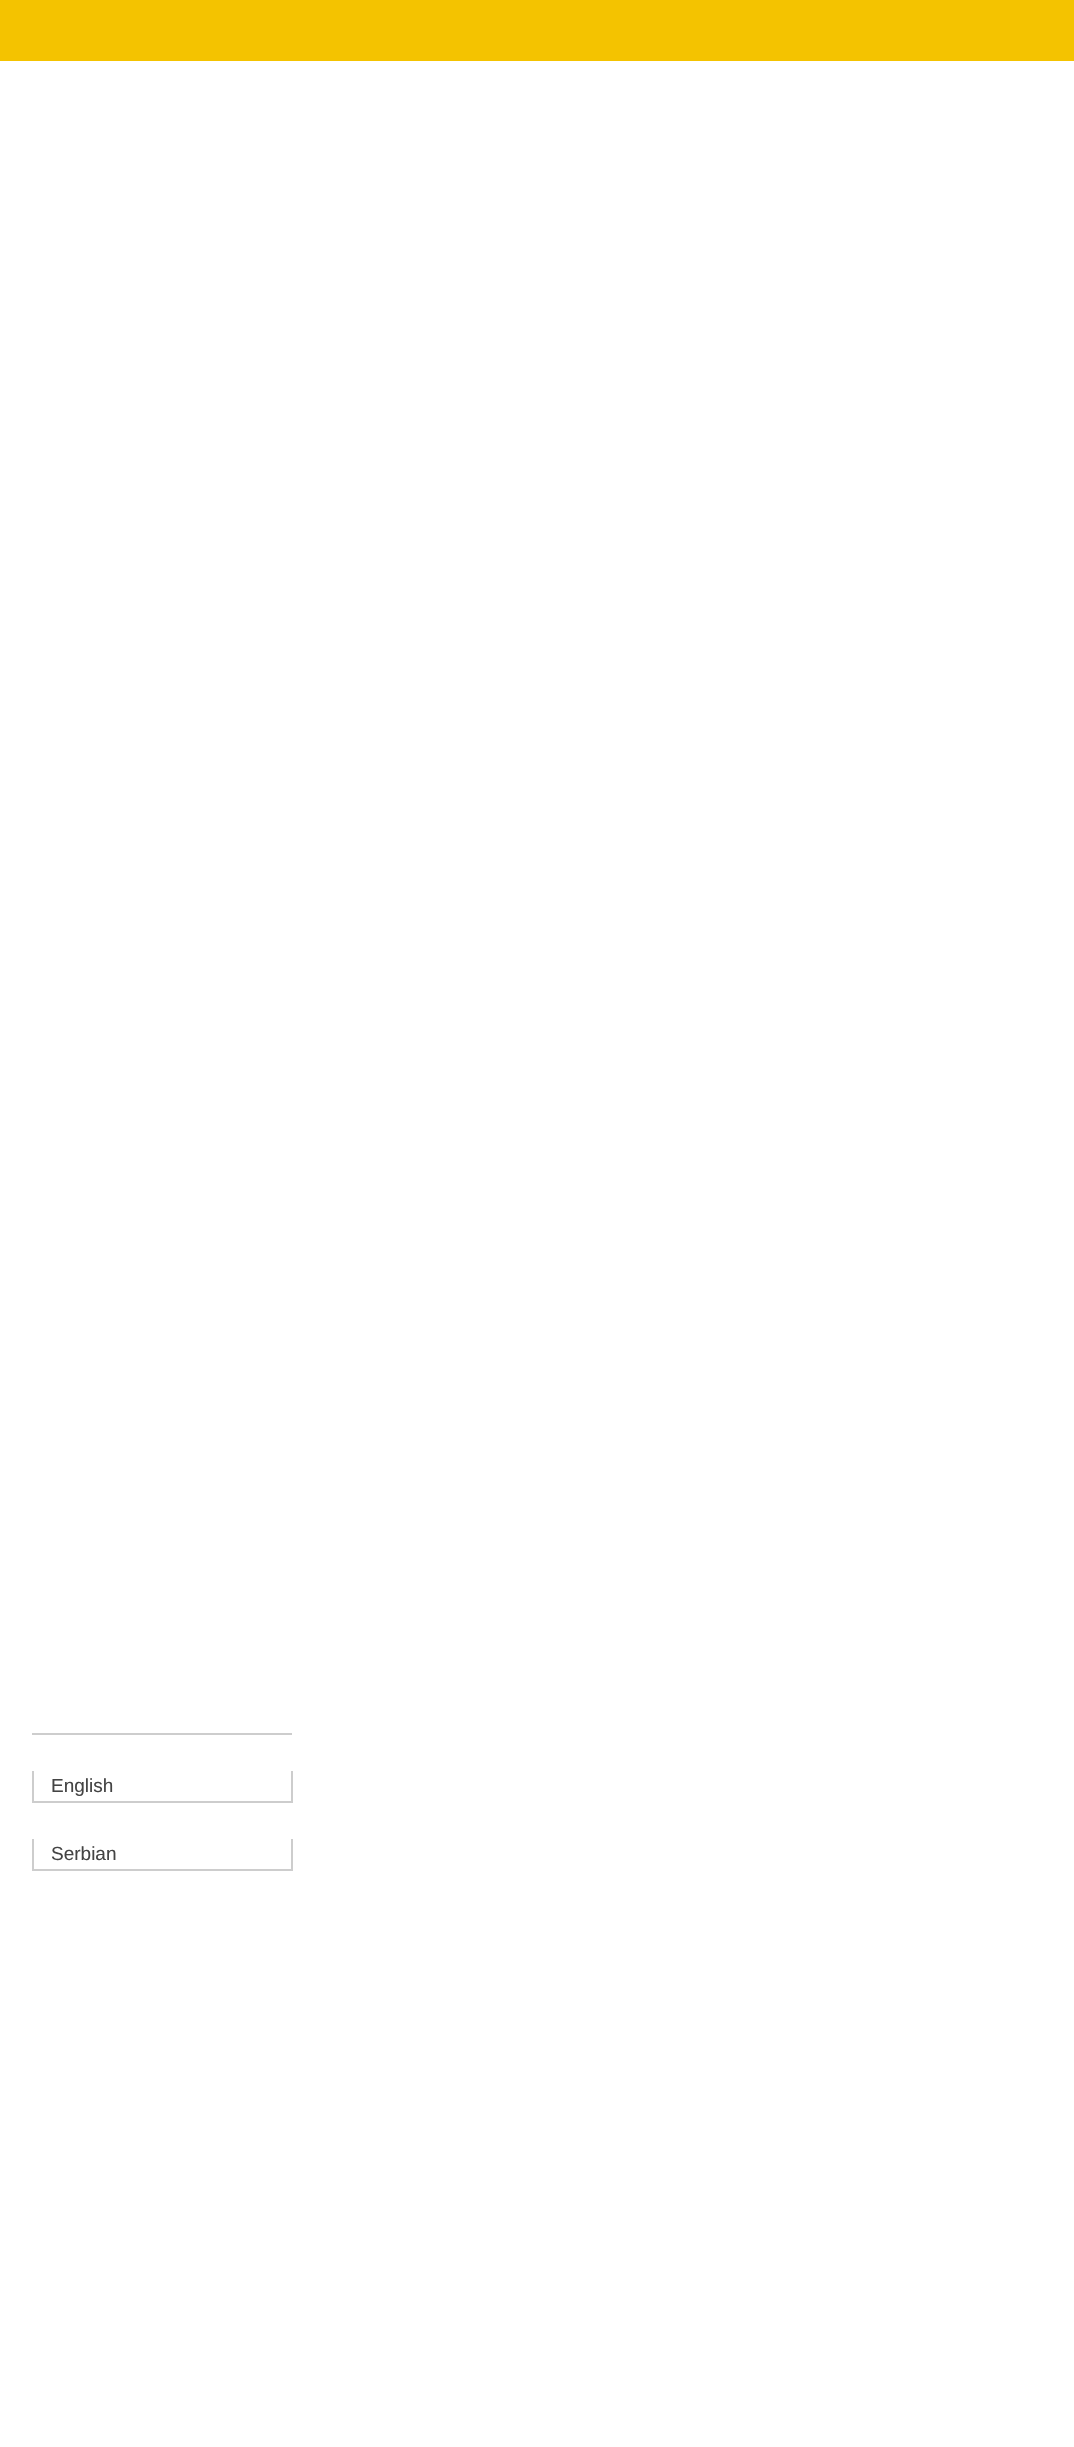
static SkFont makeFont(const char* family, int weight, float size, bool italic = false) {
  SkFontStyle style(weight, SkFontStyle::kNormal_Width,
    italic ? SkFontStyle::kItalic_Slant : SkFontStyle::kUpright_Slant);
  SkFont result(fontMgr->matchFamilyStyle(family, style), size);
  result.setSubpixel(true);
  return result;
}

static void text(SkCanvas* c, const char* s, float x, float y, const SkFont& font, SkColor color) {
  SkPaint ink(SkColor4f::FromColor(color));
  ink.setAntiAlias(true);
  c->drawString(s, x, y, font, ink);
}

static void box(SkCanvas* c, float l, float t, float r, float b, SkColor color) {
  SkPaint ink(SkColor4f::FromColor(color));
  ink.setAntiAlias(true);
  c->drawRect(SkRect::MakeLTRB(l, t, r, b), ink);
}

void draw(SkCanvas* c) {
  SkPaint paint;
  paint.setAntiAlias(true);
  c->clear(0xfff4c300);
  box(c, 0, 61, 1074, 2447, 0xffffffff);
  box(c, 32, 1733, 292, 1735, 0xffcdcdcd);
  box(c, 291, 1771, 293, 1803, 0xffcdcdcd);
  box(c, 32, 1801, 292, 1803, 0xffcdcdcd);
  box(c, 32, 1771, 34, 1803, 0xffcdcdcd);
  SkFont face1 = makeFont("Liberation Sans", 400, 19);
  text(c, "English", 51, 1792, face1, 0xff444444);
  box(c, 291, 1839, 293, 1871, 0xffcdcdcd);
  box(c, 32, 1869, 292, 1871, 0xffcdcdcd);
  box(c, 32, 1839, 34, 1871, 0xffcdcdcd);
  text(c, "Serbian", 51, 1860, face1, 0xff444444);
}
